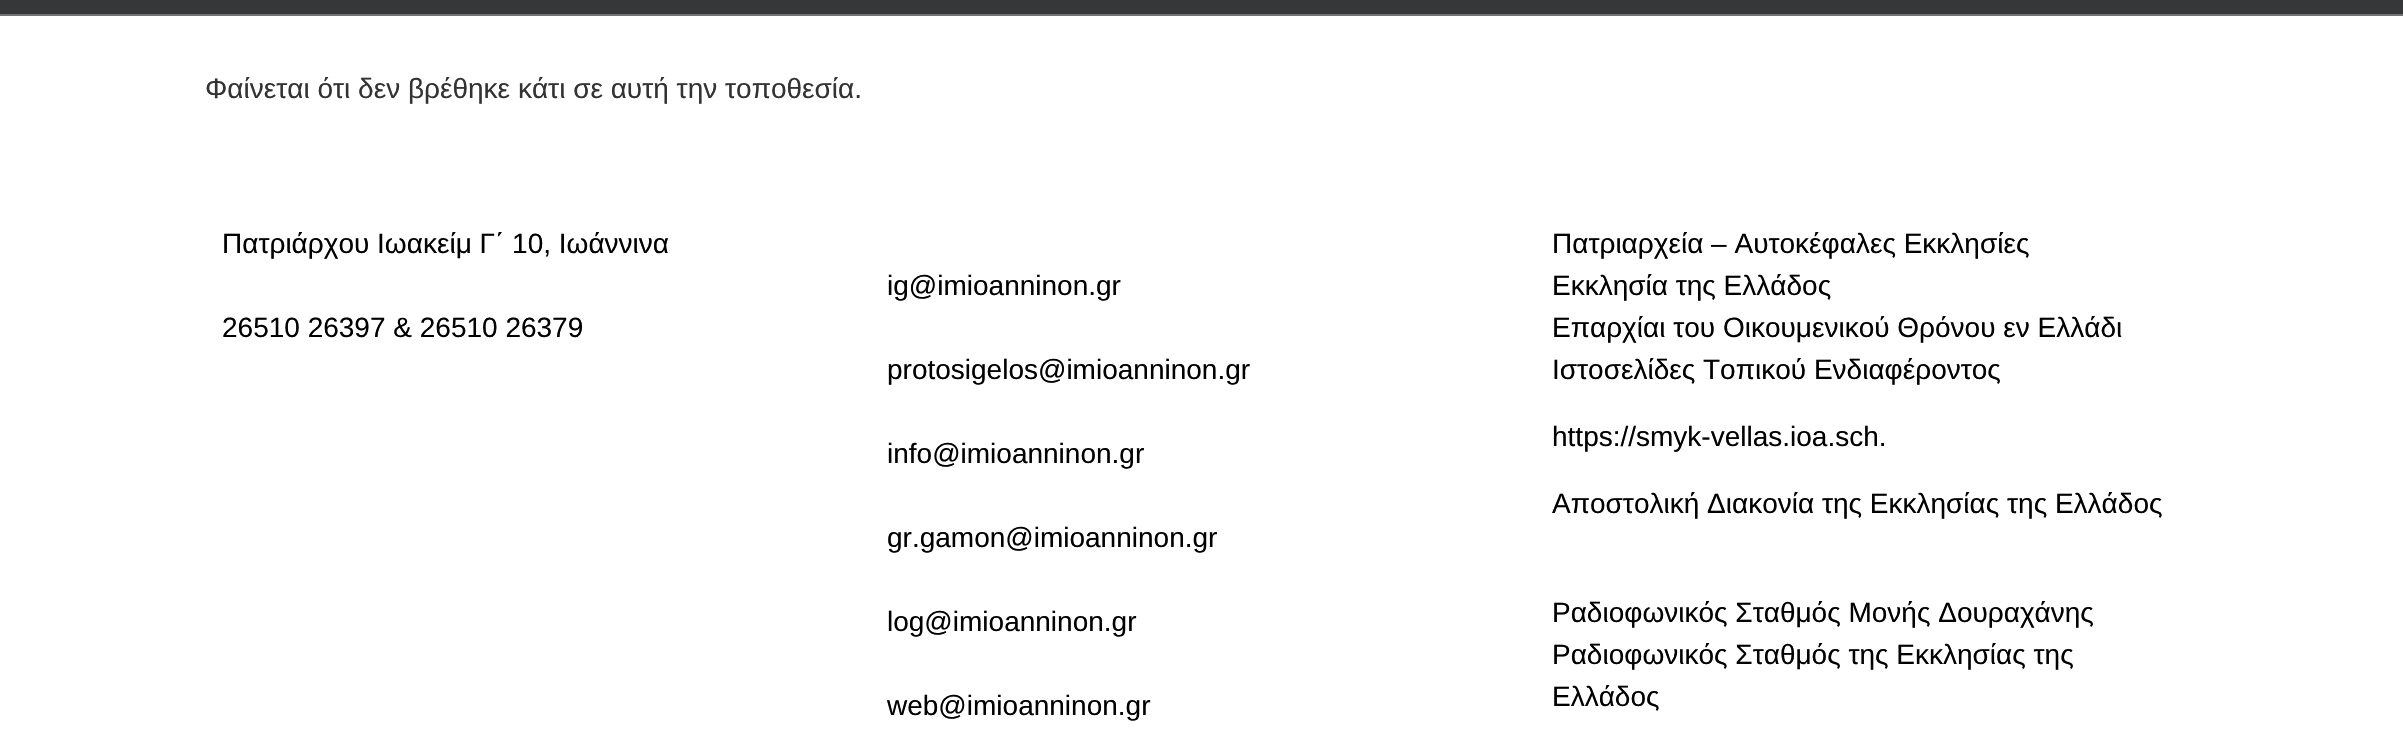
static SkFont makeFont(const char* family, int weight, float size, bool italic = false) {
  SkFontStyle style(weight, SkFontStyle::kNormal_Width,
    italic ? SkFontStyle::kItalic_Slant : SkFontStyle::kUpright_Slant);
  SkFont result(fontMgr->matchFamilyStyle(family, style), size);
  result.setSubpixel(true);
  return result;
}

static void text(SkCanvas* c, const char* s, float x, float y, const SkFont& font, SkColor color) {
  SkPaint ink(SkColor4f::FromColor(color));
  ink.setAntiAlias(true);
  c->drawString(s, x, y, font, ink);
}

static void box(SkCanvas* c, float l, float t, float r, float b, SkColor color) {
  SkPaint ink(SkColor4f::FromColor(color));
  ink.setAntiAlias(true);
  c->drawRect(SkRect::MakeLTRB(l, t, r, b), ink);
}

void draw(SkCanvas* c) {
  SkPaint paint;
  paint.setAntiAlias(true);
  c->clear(0xffffffff);
  box(c, 0, 0, 2403, 14, 0xff363738);
  box(c, 0, 14, 2403, 16, 0xff737373);
  SkFont face1 = makeFont("Liberation Sans", 400, 28);
  text(c, "Φαίνεται ότι δεν βρέθηκε κάτι σε αυτή την τοποθεσία.", 205, 98, face1, 0xff333333);
  text(c, "Πατριάρχου Ιωακείμ Γ΄ 10, Iωάννινα", 222, 253, face1, 0xff000000);
  text(c, "26510 26397 & 26510 26379", 222, 337, face1, 0xff000000);
  text(c, "ig@imioanninon.gr", 887, 295, face1, 0xff000000);
  text(c, "protosigelos@imioanninon.gr", 887, 379, face1, 0xff000000);
  text(c, "info@imioanninon.gr", 887, 463, face1, 0xff000000);
  text(c, "gr.gamon@imioanninon.gr", 887, 547, face1, 0xff000000);
  text(c, "log@imioanninon.gr", 887, 631, face1, 0xff000000);
  text(c, "web@imioanninon.gr", 887, 715, face1, 0xff000000);
  text(c, "Πατριαρχεία – Αυτοκέφαλες Εκκλησίες", 1552, 253, face1, 0xff000000);
  text(c, "Εκκλησία της Ελλάδος", 1552, 295, face1, 0xff000000);
  text(c, "Επαρχίαι του Οικουμενικού Θρόνου εν Ελλάδι", 1552, 337, face1, 0xff000000);
  text(c, "Ιστοσελίδες Τοπικού Ενδιαφέροντος", 1552, 379, face1, 0xff000000);
  text(c, "https://smyk-vellas.ioa.sch.", 1552, 446, face1, 0xff000000);
  text(c, "Αποστολική Διακονία της Εκκλησίας της Ελλάδος", 1552, 513, face1, 0xff000000);
  text(c, "Ραδιοφωνικός Σταθμός Μονής Δουραχάνης", 1552, 622, face1, 0xff000000);
  text(c, "Ραδιοφωνικός Σταθμός της Εκκλησίας της", 1552, 664, face1, 0xff000000);
  text(c, "Ελλάδος", 1552, 706, face1, 0xff000000);
}
